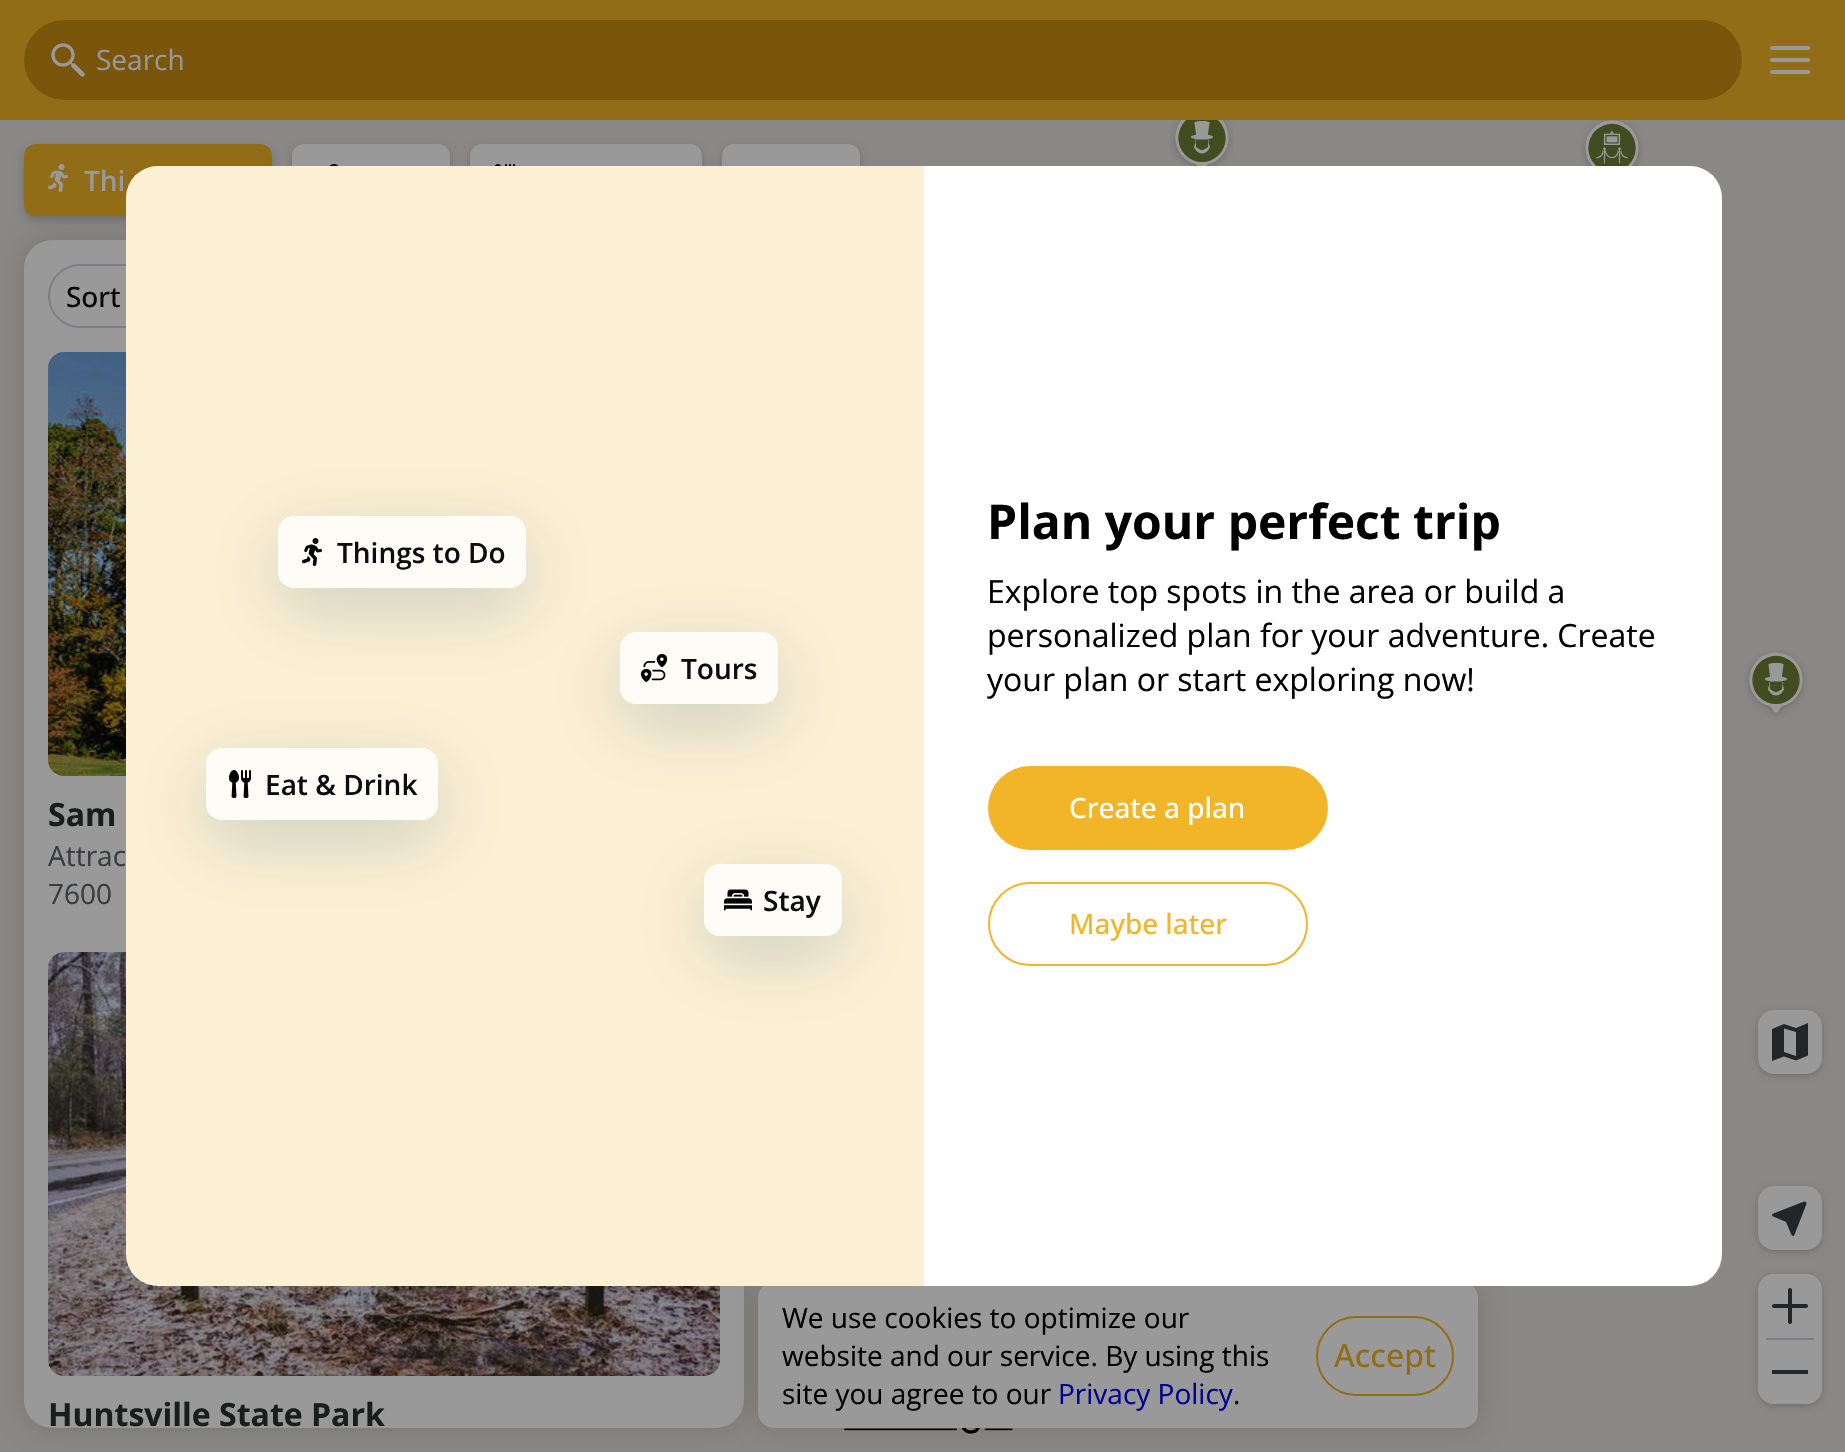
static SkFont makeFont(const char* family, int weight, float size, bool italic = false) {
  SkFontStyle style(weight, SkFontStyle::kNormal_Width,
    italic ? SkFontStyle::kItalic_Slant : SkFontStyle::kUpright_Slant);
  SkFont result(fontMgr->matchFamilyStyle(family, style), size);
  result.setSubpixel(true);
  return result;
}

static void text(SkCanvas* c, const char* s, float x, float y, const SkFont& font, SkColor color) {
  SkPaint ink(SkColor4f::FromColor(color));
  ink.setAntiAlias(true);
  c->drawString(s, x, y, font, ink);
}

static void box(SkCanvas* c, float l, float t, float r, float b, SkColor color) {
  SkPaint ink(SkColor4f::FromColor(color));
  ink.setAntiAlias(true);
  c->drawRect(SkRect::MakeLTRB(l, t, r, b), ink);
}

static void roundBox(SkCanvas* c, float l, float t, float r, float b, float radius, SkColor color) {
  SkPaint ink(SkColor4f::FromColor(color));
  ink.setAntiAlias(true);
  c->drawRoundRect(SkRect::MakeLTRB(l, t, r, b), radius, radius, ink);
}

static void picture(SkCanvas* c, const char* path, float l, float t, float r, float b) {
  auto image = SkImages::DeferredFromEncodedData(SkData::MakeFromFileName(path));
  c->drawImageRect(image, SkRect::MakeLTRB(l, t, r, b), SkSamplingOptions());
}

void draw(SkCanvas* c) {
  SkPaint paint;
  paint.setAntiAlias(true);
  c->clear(0xff898886);
  box(c, 0, 0, 1845, 120, 0xff916d17);
  roundBox(c, 24, 20, 1742, 100, 40, 0xff7a560d);
  picture(c, "img_01.png", 51, 43, 85, 77);
  SkFont face1 = makeFont("Open Sans", 400, 28);
  text(c, "Search", 96, 70, face1, 0xff999999);
  picture(c, "img_02.png", 1770, 46, 1810, 74);
  paint.setColor(0x33000000);
  paint.setMaskFilter(SkMaskFilter::MakeBlur(kNormal_SkBlurStyle, 4));
  c->drawRoundRect(SkRect::MakeLTRB(24, 148, 272, 220), 12, 12, paint);
  paint.setMaskFilter(nullptr);
  paint.setColor(0x26000000);
  paint.setMaskFilter(SkMaskFilter::MakeBlur(kNormal_SkBlurStyle, 13));
  c->drawRoundRect(SkRect::MakeLTRB(24, 240, 744, 1428), 28, 28, paint);
  paint.setMaskFilter(nullptr);
  roundBox(c, 24, 144, 272, 216, 12, 0xff916d17);
  picture(c, "img_03.png", 48, 164, 68, 192);
  SkFont face2 = makeFont("Open Sans", 600, 28);
  text(c, "Thi", 84, 191, face2, 0xff999999);
  paint.setColor(0x33000000);
  paint.setMaskFilter(SkMaskFilter::MakeBlur(kNormal_SkBlurStyle, 4));
  c->drawRoundRect(SkRect::MakeLTRB(292, 148, 450, 220), 12, 12, paint);
  paint.setMaskFilter(nullptr);
  roundBox(c, 292, 144, 450, 216, 12, 0xff999999);
  picture(c, "img_04.png", 329, 164, 339, 166);
  paint.setMaskFilter(SkMaskFilter::MakeBlur(kNormal_SkBlurStyle, 4));
  c->drawRoundRect(SkRect::MakeLTRB(470, 148, 702, 220), 12, 12, paint);
  paint.setMaskFilter(nullptr);
  roundBox(c, 470, 144, 702, 216, 12, 0xff999999);
  picture(c, "img_05.png", 494, 164, 516, 166);
  paint.setMaskFilter(SkMaskFilter::MakeBlur(kNormal_SkBlurStyle, 4));
  c->drawRoundRect(SkRect::MakeLTRB(722, 148, 860, 220), 12, 12, paint);
  paint.setMaskFilter(nullptr);
  roundBox(c, 722, 144, 860, 216, 12, 0xff999999);
  picture(c, "img_06.png", 1170, 120, 1234, 166);
  picture(c, "img_07.png", 1580, 120, 1644, 166);
  picture(c, "img_08.png", 1744, 650, 1808, 718);
  paint.setColor(0x4d000000);
  paint.setMaskFilter(SkMaskFilter::MakeBlur(kNormal_SkBlurStyle, 4));
  c->drawRoundRect(SkRect::MakeLTRB(1760, 1014, 1820, 1074), 14, 14, paint);
  paint.setMaskFilter(nullptr);
  roundBox(c, 1758, 1010, 1822, 1074, 16, 0xff999999);
  paint.setColor(0xff232526);
  c->drawPath(SkPathBuilder().moveTo(1796, 1028).lineTo(1784, 1024).lineTo(1772, 1029).lineTo(1772, 1061).lineTo(1784, 1056.5f).lineTo(1796, 1060.5f).lineTo(1808, 1055.5f).lineTo(1808, 1023).close().moveTo(1784, 1052).lineTo(1784, 1028.5f).lineTo(1796, 1032).lineTo(1796, 1056).close().detach(), paint);
  paint.setColor(0x4d000000);
  paint.setMaskFilter(SkMaskFilter::MakeBlur(kNormal_SkBlurStyle, 4));
  c->drawRoundRect(SkRect::MakeLTRB(1760, 1190, 1820, 1250), 14, 14, paint);
  paint.setMaskFilter(nullptr);
  roundBox(c, 1758, 1186, 1822, 1250, 16, 0xff999999);
  picture(c, "img_09.png", 1772, 1201, 1807, 1236);
  paint.setMaskFilter(SkMaskFilter::MakeBlur(kNormal_SkBlurStyle, 4));
  c->drawRoundRect(SkRect::MakeLTRB(1760, 1278, 1820, 1404), 14, 14, paint);
  paint.setMaskFilter(nullptr);
  roundBox(c, 1758, 1274, 1822, 1404, 16, 0xff999999);
  paint.setColor(0xff999999);
  c->drawPath(SkPathBuilder().moveTo(1774, 1274).lineTo(1806, 1274).cubicTo(1815, 1274, 1822, 1281, 1822, 1290).lineTo(1822, 1338).lineTo(1758, 1338).lineTo(1758, 1290).cubicTo(1758, 1281, 1765, 1274, 1774, 1274).close().detach(), paint);
  picture(c, "img_10.png", 1772, 1288, 1808, 1324);
  box(c, 1766, 1338, 1814, 1340, 0xff7d7f82);
  c->drawPath(SkPathBuilder().moveTo(1758, 1340).lineTo(1822, 1340).lineTo(1822, 1388).cubicTo(1822, 1397, 1815, 1404, 1806, 1404).lineTo(1774, 1404).cubicTo(1765, 1404, 1758, 1397, 1758, 1388).close().detach(), paint);
  box(c, 1772, 1370, 1808, 1374, 0xff232526);
  picture(c, "img_11.png", 842, 1428, 1015, 1435);
  roundBox(c, 24, 240, 744, 1428, 28, 0xff999999);
  paint.setStyle(SkPaint::kStroke_Style);
  paint.setStrokeWidth(2);
  paint.setColor(0xff7d7f82);
  c->drawRoundRect(SkRect::MakeLTRB(49, 265, 189, 327), 31, 31, paint);
  SkFont face3 = makeFont("Open Sans", 500, 28);
  text(c, "Sort", 66, 307, face3, 0xff070808);
  picture(c, "img_12.png", 48, 352, 126, 776);
  SkFont face4 = makeFont("Open Sans", 700, 32);
  text(c, "Sam", 48, 826, face4, 0xff1b1c1c);
  text(c, "Attrac", 48, 866, face1, 0xff3a3b3d);
  text(c, "7600", 48, 904, face1, 0xff3a3b3d);
  picture(c, "img_13.png", 48, 952, 720, 1376);
  text(c, "Huntsville State Park", 48, 1426, face4, 0xff1b1c1c);
  paint.setStyle(SkPaint::kFill_Style);
  paint.setColor(0x26000000);
  paint.setMaskFilter(SkMaskFilter::MakeBlur(kNormal_SkBlurStyle, 13));
  c->drawRoundRect(SkRect::MakeLTRB(758, 1282, 1478, 1428), 16, 16, paint);
  paint.setMaskFilter(nullptr);
  roundBox(c, 758, 1282, 1478, 1428, 16, 0xff999999);
  text(c, "We use cookies to optimize our", 782, 1328, face1, 0xff000000);
  text(c, "website and our service. By using this", 782, 1366, face1, 0xff000000);
  text(c, "site you agree to our", 782, 1404, face1, 0xff000000);
  text(c, "Privacy Policy", 1058, 1404, face1, 0xff00008f);
  text(c, ".", 1233, 1404, face1, 0xff000000);
  paint.setStyle(SkPaint::kStroke_Style);
  paint.setColor(0xff916d17);
  c->drawRoundRect(SkRect::MakeLTRB(1317, 1317, 1453, 1395), 39, 39, paint);
  SkFont face5 = makeFont("Open Sans", 500, 32);
  text(c, "Accept", 1334, 1367, face5, 0xff916d17);
  roundBox(c, 126, 166, 1722, 1286, 32, 0xffffffff);
  paint.setStyle(SkPaint::kFill_Style);
  paint.setColor(0x33f2b527);
  c->drawPath(SkPathBuilder().moveTo(158, 166).lineTo(924, 166).lineTo(924, 1286).lineTo(158, 1286).cubicTo(140.5f, 1286, 126, 1271.5f, 126, 1254).lineTo(126, 198).cubicTo(126, 180.5f, 140.5f, 166, 158, 166).close().detach(), paint);
  c->save();
  c->clipPath(SkPathBuilder(SkPathFillType::kEvenOdd).moveTo(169, 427).lineTo(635, 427).lineTo(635, 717).lineTo(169, 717).close().moveTo(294, 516).lineTo(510, 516).cubicTo(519, 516, 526, 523, 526, 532).lineTo(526, 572).cubicTo(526, 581, 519, 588, 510, 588).lineTo(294, 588).cubicTo(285, 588, 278, 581, 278, 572).lineTo(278, 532).cubicTo(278, 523, 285, 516, 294, 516).close().detach(), true);
  paint.setColor(0x33043f66);
  paint.setMaskFilter(SkMaskFilter::MakeBlur(kNormal_SkBlurStyle, 36));
  c->drawRoundRect(SkRect::MakeLTRB(278, 536, 526, 608), 16, 16, paint);
  paint.setMaskFilter(nullptr);
  c->restore();
  roundBox(c, 278, 516, 526, 588, 16, 0xccffffff);
  picture(c, "img_14.png", 302, 538, 322, 566);
  text(c, "Things to Do", 337, 563, face2, 0xff0c0d0e);
  c->save();
  c->clipPath(SkPathBuilder(SkPathFillType::kEvenOdd).moveTo(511, 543).lineTo(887, 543).lineTo(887, 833).lineTo(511, 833).close().moveTo(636, 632).lineTo(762, 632).cubicTo(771, 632, 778, 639, 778, 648).lineTo(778, 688).cubicTo(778, 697, 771, 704, 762, 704).lineTo(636, 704).cubicTo(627, 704, 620, 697, 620, 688).lineTo(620, 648).cubicTo(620, 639, 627, 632, 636, 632).close().detach(), true);
  paint.setMaskFilter(SkMaskFilter::MakeBlur(kNormal_SkBlurStyle, 36));
  c->drawRoundRect(SkRect::MakeLTRB(620, 652, 778, 724), 16, 16, paint);
  paint.setMaskFilter(nullptr);
  c->restore();
  roundBox(c, 620, 632, 778, 704, 16, 0xccffffff);
  picture(c, "img_15.png", 640, 654, 668, 682);
  text(c, "Tours", 681, 679, face2, 0xff0c0d0e);
  c->save();
  c->clipPath(SkPathBuilder(SkPathFillType::kEvenOdd).moveTo(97, 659).lineTo(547, 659).lineTo(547, 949).lineTo(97, 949).close().moveTo(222, 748).lineTo(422, 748).cubicTo(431, 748, 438, 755, 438, 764).lineTo(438, 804).cubicTo(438, 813, 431, 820, 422, 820).lineTo(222, 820).cubicTo(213, 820, 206, 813, 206, 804).lineTo(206, 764).cubicTo(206, 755, 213, 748, 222, 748).close().detach(), true);
  paint.setMaskFilter(SkMaskFilter::MakeBlur(kNormal_SkBlurStyle, 36));
  c->drawRoundRect(SkRect::MakeLTRB(206, 768, 438, 840), 16, 16, paint);
  paint.setMaskFilter(nullptr);
  c->restore();
  roundBox(c, 206, 748, 438, 820, 16, 0xccffffff);
  picture(c, "img_16.png", 229, 770, 252, 798);
  text(c, "Eat & Drink", 265, 795, face2, 0xff0c0d0e);
  c->save();
  c->clipPath(SkPathBuilder(SkPathFillType::kEvenOdd).moveTo(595, 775).lineTo(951, 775).lineTo(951, 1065).lineTo(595, 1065).close().moveTo(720, 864).lineTo(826, 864).cubicTo(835, 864, 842, 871, 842, 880).lineTo(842, 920).cubicTo(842, 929, 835, 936, 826, 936).lineTo(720, 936).cubicTo(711, 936, 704, 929, 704, 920).lineTo(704, 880).cubicTo(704, 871, 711, 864, 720, 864).close().detach(), true);
  paint.setMaskFilter(SkMaskFilter::MakeBlur(kNormal_SkBlurStyle, 36));
  c->drawRoundRect(SkRect::MakeLTRB(704, 884, 842, 956), 16, 16, paint);
  paint.setMaskFilter(nullptr);
  c->restore();
  roundBox(c, 704, 864, 842, 936, 16, 0xccffffff);
  picture(c, "img_17.png", 724, 889, 752, 911);
  text(c, "Stay", 763, 911, face2, 0xff0c0d0e);
  SkFont face6 = makeFont("Open Sans", 700, 48);
  text(c, "Plan your perfect trip", 987, 539, face6, 0xff000000);
  SkFont face7 = makeFont("Open Sans", 400, 32);
  text(c, "Explore top spots in the area or build a", 987, 603, face7, 0xff000000);
  text(c, "personalized plan for your adventure. Create", 987, 647, face7, 0xff000000);
  text(c, "your plan or start exploring now!", 987, 691, face7, 0xff000000);
  roundBox(c, 988, 766, 1328, 850, 42, 0xfff2b527);
  text(c, "Create a plan", 1069, 818, face3, 0xffffffff);
  paint.setStyle(SkPaint::kStroke_Style);
  paint.setColor(0xfff2b527);
  c->drawRoundRect(SkRect::MakeLTRB(989, 883, 1307, 965), 41, 41, paint);
  text(c, "Maybe later", 1069, 934, face3, 0xfff2b527);
}
